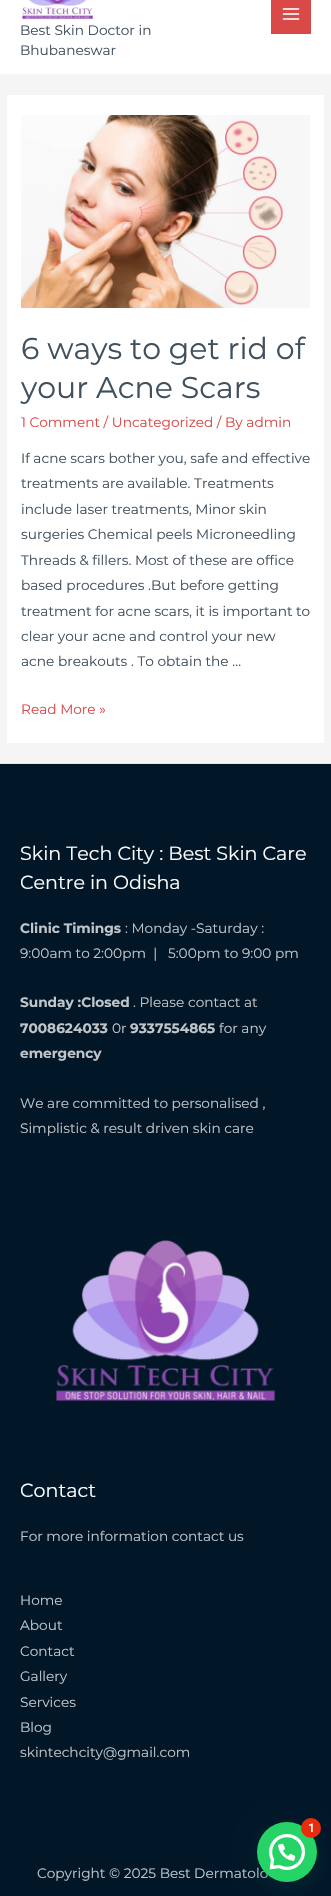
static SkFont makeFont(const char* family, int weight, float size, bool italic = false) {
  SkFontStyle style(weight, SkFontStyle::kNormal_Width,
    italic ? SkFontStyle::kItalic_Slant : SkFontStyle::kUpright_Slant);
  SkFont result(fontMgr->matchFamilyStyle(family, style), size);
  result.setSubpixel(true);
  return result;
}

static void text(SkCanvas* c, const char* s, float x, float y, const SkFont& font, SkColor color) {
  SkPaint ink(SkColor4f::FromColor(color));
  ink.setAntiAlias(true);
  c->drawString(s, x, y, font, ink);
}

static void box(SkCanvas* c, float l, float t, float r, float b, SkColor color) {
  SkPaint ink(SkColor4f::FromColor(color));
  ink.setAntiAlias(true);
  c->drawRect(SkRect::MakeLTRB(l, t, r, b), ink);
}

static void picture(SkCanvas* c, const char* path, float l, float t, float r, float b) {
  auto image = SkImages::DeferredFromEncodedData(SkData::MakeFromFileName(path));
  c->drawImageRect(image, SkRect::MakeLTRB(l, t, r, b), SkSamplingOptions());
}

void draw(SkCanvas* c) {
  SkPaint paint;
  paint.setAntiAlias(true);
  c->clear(0xfff5f5f5);
  box(c, 0, 0, 331, 74, 0xffffffff);
  box(c, 271, 0, 311, 34, 0xffd94948);
  picture(c, "img_01.png", 282, 8, 300, 20);
  picture(c, "img_02.png", 22, 0, 94, 20);
  SkFont face1 = makeFont("Montserrat", 400, 13.7f);
  text(c, "Best Skin Doctor in", 20, 35, face1, 0xff41505d);
  text(c, "Bhubaneswar", 20, 55, face1, 0xff41505d);
  box(c, 7, 95, 324, 743, 0xffffffff);
  picture(c, "img_03.png", 21, 115, 310, 308);
  SkFont face2 = makeFont("Montserrat", 400, 30);
  text(c, "6 ways to get rid of", 21, 359, face2, 0xff41505d);
  text(c, "your Acne Scars", 21, 398, face2, 0xff41505d);
  text(c, "1 Comment / Uncategorized / By admin", 21, 427, face1, 0xffd94948);
  text(c, "If acne scars bother you, safe and effective", 21, 463, face1, 0xff41505d);
  text(c, "treatments are available. Treatments", 21, 488, face1, 0xff41505d);
  text(c, "include laser treatments, Minor skin", 21, 514, face1, 0xff41505d);
  text(c, "surgeries Chemical peels Microneedling", 21, 539, face1, 0xff41505d);
  text(c, "Threads & fillers. Most of these are office", 21, 565, face1, 0xff41505d);
  text(c, "based procedures .But before getting", 21, 590, face1, 0xff41505d);
  text(c, "treatment for acne scars, it is important to", 21, 616, face1, 0xff41505d);
  text(c, "clear your acne and control your new", 21, 641, face1, 0xff41505d);
  text(c, "acne breakouts . To obtain the …", 21, 666, face1, 0xff41505d);
  text(c, "Read More »", 21, 714, face1, 0xffd94948);
  box(c, 0, 764, 331, 1896, 0xff011627);
  box(c, 0, 763, 331, 764, 0xffe6e6e6);
  SkFont face3 = makeFont("Montserrat", 400, 19.1f);
  text(c, "Skin Tech City : Best Skin Care", 20, 860, face3, 0xffffffff);
  text(c, "Centre in Odisha", 20, 889, face3, 0xffffffff);
  SkFont face4 = makeFont("Montserrat", 700, 13.7f);
  text(c, "Clinic Timings", 20, 933, face4, 0xffc0c5c9);
  text(c, ": Monday -Saturday :", 125, 933, face1, 0xffc0c5c9);
  text(c, "9:00am to 2:00pm  |   5:00pm to 9:00 pm", 20, 958, face1, 0xffc0c5c9);
  text(c, "Sunday :Closed", 20, 1007, face4, 0xffc0c5c9);
  text(c, ". Please contact at", 133, 1007, face1, 0xffc0c5c9);
  text(c, "7008624033", 20, 1033, face4, 0xffc0c5c9);
  text(c, "0r", 112, 1033, face1, 0xffc0c5c9);
  text(c, "9337554865", 130, 1033, face4, 0xffc0c5c9);
  text(c, "for any", 219, 1033, face1, 0xffc0c5c9);
  text(c, "emergency", 20, 1058, face4, 0xffc0c5c9);
  text(c, "We are committed to personalised ,", 20, 1108, face1, 0xffc0c5c9);
  text(c, "Simplistic & result driven skin care", 20, 1133, face1, 0xffc0c5c9);
  picture(c, "img_04.png", 56, 1240, 276, 1401);
  text(c, "Contact", 20, 1497, face3, 0xffffffff);
  text(c, "For more information contact us", 20, 1541, face1, 0xffc0c5c9);
  text(c, "Home", 20, 1605, face1, 0xffc0c5c9);
  text(c, "About", 20, 1630, face1, 0xffc0c5c9);
  text(c, "Contact", 20, 1656, face1, 0xffc0c5c9);
  text(c, "Gallery", 20, 1681, face1, 0xffc0c5c9);
  text(c, "Services", 20, 1707, face1, 0xffc0c5c9);
  text(c, "Blog", 20, 1732, face1, 0xffc0c5c9);
  text(c, "skintechcity@gmail.com", 20, 1757, face1, 0xffc0c5c9);
  text(c, "Copyright © 2025 Best Dermatolo", 37, 1878, face1, 0xffc0c5c9);
  paint.setColor(0x3d075e54);
  paint.setMaskFilter(SkMaskFilter::MakeBlur(kNormal_SkBlurStyle, 12));
  c->drawRoundRect(SkRect::MakeLTRB(258, 1828, 318, 1888), 30, 30, paint);
  paint.setMaskFilter(nullptr);
  paint.setColor(0xff25d366);
  c->drawCircle(287, 1852, 30, paint);
  picture(c, "img_05.png", 269, 1834, 305, 1870);
  paint.setColor(0xffe82c0c);
  c->drawCircle(311, 1828, 10, paint);
  SkFont face5 = makeFont("Roboto", 600, 12);
  text(c, "1", 308, 1832, face5, 0xffffffff);
}
